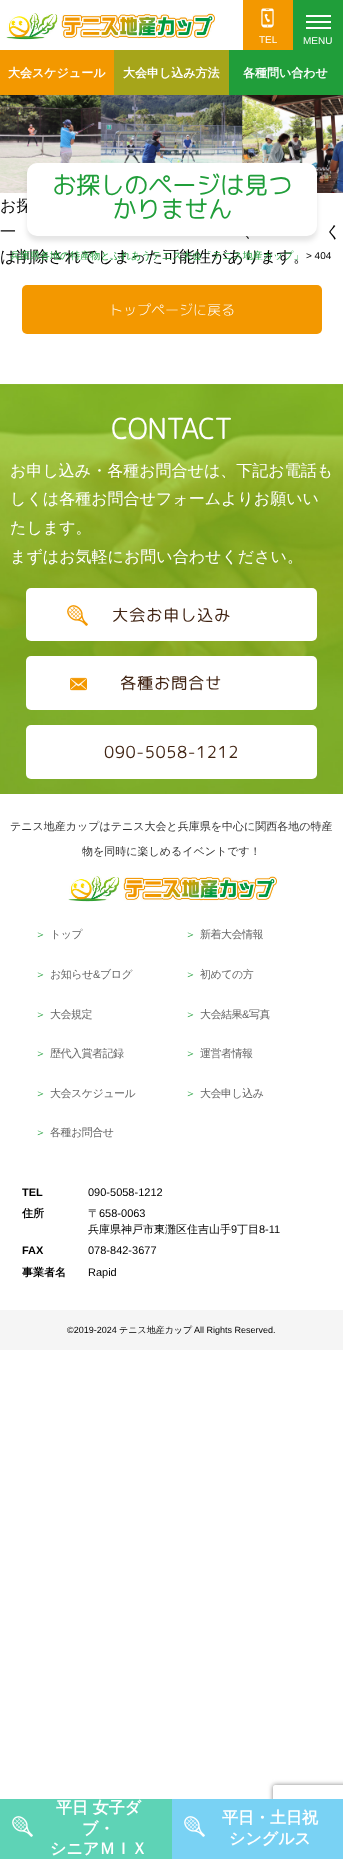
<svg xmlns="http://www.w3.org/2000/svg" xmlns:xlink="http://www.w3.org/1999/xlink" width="343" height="1859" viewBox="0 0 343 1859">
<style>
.cls-1{font:10px Liberation Sans;fill:#ffffff}
.cls-2{font:bold 12px WenQuanYi Zen Hei;fill:#ffffff}
.cls-3{font:500 16px WenQuanYi Zen Hei;fill:#000000}
.cls-4{font:bold 24px 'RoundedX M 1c';fill:#209e3a}
.cls-5{font:300 14px 'RoundedX M 1c';fill:#ffffff}
.cls-6{font:500 10px WenQuanYi Zen Hei;fill:#209e3a}
.cls-7{font:10px Liberation Sans;fill:#000000}
.cls-8{font:bold 28px 'RoundedX M 1c';fill:#ffffff}
.cls-9{font:500 16px WenQuanYi Zen Hei;fill:#ffffff}
.cls-10{font:bold 16px 'RoundedX M 1c';letter-spacing:1px;fill:#412413}
.cls-11{font:500 11px WenQuanYi Zen Hei;fill:#333333}
.cls-12{font:500 11px WenQuanYi Zen Hei;letter-spacing:-0.5px;fill:#209e3a}
.cls-13{font:500 11px WenQuanYi Zen Hei;letter-spacing:-0.5px;fill:#666666}
.cls-14{font:11px Liberation Sans;letter-spacing:-0.5px;fill:#666666}
.cls-15{font:bold 11px Liberation Sans;fill:#000000}
.cls-16{font:11px Liberation Sans;fill:#000000}
.cls-17{font:bold 11px WenQuanYi Zen Hei;fill:#000000}
.cls-18{font:500 11px WenQuanYi Zen Hei;fill:#000000}
.cls-19{font:9px Liberation Sans;fill:#000000}
.cls-20{font:500 9px WenQuanYi Zen Hei;fill:#000000}
.cls-21{font:bold 16px WenQuanYi Zen Hei;fill:#ffffff}
</style>
<defs>
<clipPath id="clip1"><path d="M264 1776H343V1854H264ZM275 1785H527C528 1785 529 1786 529 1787V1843C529 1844 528 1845 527 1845H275C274 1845 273 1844 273 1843V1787C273 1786 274 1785 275 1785Z" clip-rule="evenodd"/></clipPath>
</defs>
<rect width="100%" height="100%" fill="#ffffff"/>
<image xlink:href="image0.png" x="6" y="13" width="209" height="27"/>
<rect fill="#f39800" x="243" y="0" width="50" height="50"/>
<image xlink:href="image1.png" x="261" y="8" width="13" height="20"/>
<rect fill="#f39800" x="0" y="50" width="114" height="45"/>
<rect fill="#a6a51a" x="114" y="50" width="115" height="45"/>
<rect fill="#209e3a" x="229" y="50" width="114" height="45"/>
<rect fill="#209e3a" x="293" y="0" width="50" height="50"/>
<rect fill="#ffffff" x="306" y="15" width="25" height="2"/>
<rect fill="#ffffff" x="306" y="21" width="25" height="2"/>
<rect fill="#ffffff" x="306" y="27" width="25" height="2"/>
<image xlink:href="image2.png" x="0" y="95" width="343" height="98"/>
<rect fill="#000000" fill-opacity="0.1" filter="blur(2.5px)" x="27" y="168" width="290" height="73" rx="10"/>
<rect fill="#f39800" x="22" y="285" width="300" height="49" rx="5"/>
<image xlink:href="image3.png" x="0" y="384" width="343" height="410"/>
<rect fill="#ffffff" x="26" y="588" width="291" height="53" rx="5"/>
<image xlink:href="image4.png" x="67" y="605" width="21" height="21"/>
<rect fill="#ffffff" x="26" y="656" width="291" height="54" rx="5"/>
<image xlink:href="image5.png" x="70" y="677" width="17" height="14"/>
<rect fill="#ffffff" x="26" y="725" width="291" height="54" rx="5"/>
<image xlink:href="image6.png" x="68" y="876" width="209" height="26"/>
<rect fill="#f5f5f5" x="0" y="1310" width="343" height="40"/>
<g clip-path="url(#clip1)">
<rect fill="#808080" filter="blur(2.5px)" x="273" y="1785" width="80" height="60" rx="2"/>
</g>
<rect fill="#5ed3b6" x="0" y="1799" width="172" height="60"/>
<image xlink:href="image7.png" x="12" y="1816" width="21" height="21"/>
<rect fill="#79d2f4" x="172" y="1799" width="171" height="60"/>
<image xlink:href="image8.png" x="184" y="1816" width="21" height="21"/>
<text class="cls-1" x="259" y="43">TEL</text>
<text class="cls-2" x="8" y="77">大会スケジュール</text>
<text class="cls-2" x="123" y="77">大会申し込み方法</text>
<text class="cls-2" x="243" y="77">各種問い合わせ</text>
<text class="cls-1" x="303" y="44">MENU</text>
<text class="cls-3"><tspan x="0" y="211">お探</tspan><tspan x="0" y="237">一</tspan></text>
<text class="cls-3" x="325" y="237">く</text>
<text class="cls-3" x="244" y="237">、</text>
<rect fill="#ffffff" x="27" y="163" width="290" height="73" rx="10"/>
<text class="cls-4" x="112" y="218">かりません</text>
<text class="cls-4" x="52" y="194">お探しのページは見つ</text>
<text class="cls-3" x="0" y="262">は削除されてしまった可能性があります。</text>
<text class="cls-5" x="109" y="315">トップページに戻る</text>
<text class="cls-6" x="10" y="259">兵庫県各地の特産物とふれあうテニス大会「テニス地産カップ」</text>
<text class="cls-7" x="306" y="259">&gt; 404</text>
<text class="cls-8" x="111" y="439">CONTACT</text>
<text class="cls-9"><tspan x="10" y="476">お申し込み・各種お問合せは、下記お電話も</tspan><tspan x="10" y="504">しくは各種お問合せフォームよりお願いい</tspan><tspan x="10" y="533">たします。</tspan><tspan x="10" y="562">まずはお気軽にお問い合わせください。</tspan></text>
<text class="cls-10" x="112" y="621">大会お申し込み</text>
<text class="cls-10" x="120" y="689">各種お問合せ</text>
<text class="cls-10" x="104" y="758">090-5058-1212</text>
<text class="cls-11" x="10" y="830">テニス地産カップはテニス大会と兵庫県を中心に関西各地の特産</text>
<text class="cls-11" x="82" y="855">物を同時に楽しめるイベントです！</text>
<text class="cls-12" x="35" y="938">＞</text>
<text class="cls-13" x="50" y="938">トップ</text>
<text class="cls-12" x="185" y="938">＞</text>
<text class="cls-13" x="200" y="938">新着大会情報</text>
<text class="cls-12" x="35" y="978">＞</text>
<text class="cls-13" x="50" y="978">お知らせ</text>
<text class="cls-14" x="93" y="978">&amp;</text>
<text class="cls-13" x="100" y="978">ブログ</text>
<text class="cls-12" x="185" y="978">＞</text>
<text class="cls-13" x="200" y="978">初めての方</text>
<text class="cls-12" x="35" y="1018">＞</text>
<text class="cls-13" x="50" y="1018">大会規定</text>
<text class="cls-12" x="185" y="1018">＞</text>
<text class="cls-13" x="200" y="1018">大会結果</text>
<text class="cls-14" x="242" y="1018">&amp;</text>
<text class="cls-13" x="249" y="1018">写真</text>
<text class="cls-12" x="35" y="1057">＞</text>
<text class="cls-13" x="50" y="1057">歴代入賞者記録</text>
<text class="cls-12" x="185" y="1057">＞</text>
<text class="cls-13" x="200" y="1057">運営者情報</text>
<text class="cls-12" x="35" y="1097">＞</text>
<text class="cls-13" x="50" y="1097">大会スケジュール</text>
<text class="cls-12" x="185" y="1097">＞</text>
<text class="cls-13" x="200" y="1097">大会申し込み</text>
<text class="cls-12" x="35" y="1136">＞</text>
<text class="cls-13" x="50" y="1136">各種お問合せ</text>
<text class="cls-15" x="22" y="1196">TEL</text>
<text class="cls-16" x="88" y="1196">090-5058-1212</text>
<text class="cls-17" x="22" y="1217">住所</text>
<text class="cls-18" x="88" y="1217">〒</text>
<text class="cls-16" x="99" y="1217">658-0063</text>
<text class="cls-18" x="88" y="1233">兵庫県神戸市東灘区住吉山手</text>
<text class="cls-16" x="231" y="1233">9</text>
<text class="cls-18" x="237" y="1233">丁目</text>
<text class="cls-16" x="259" y="1233">8-11</text>
<text class="cls-15" x="22" y="1254">FAX</text>
<text class="cls-16" x="88" y="1254">078-842-3677</text>
<text class="cls-17" x="22" y="1276">事業者名</text>
<text class="cls-16" x="88" y="1276">Rapid</text>
<text class="cls-19" x="67" y="1333">©2019-2024</text>
<text class="cls-20" x="119" y="1333">テニス地産カップ</text>
<text class="cls-19" x="194" y="1333">All Rights Reserved.</text>
<text class="cls-21" x="56" y="1813">平日 女子ダ</text>
<text class="cls-21" x="82" y="1834">ブ・</text>
<text class="cls-21" x="50" y="1854">シニアＭＩＸ</text>
<text class="cls-21" x="222" y="1823">平日・土日祝</text>
<text class="cls-21" x="229" y="1844">シングルス</text>
</svg>
